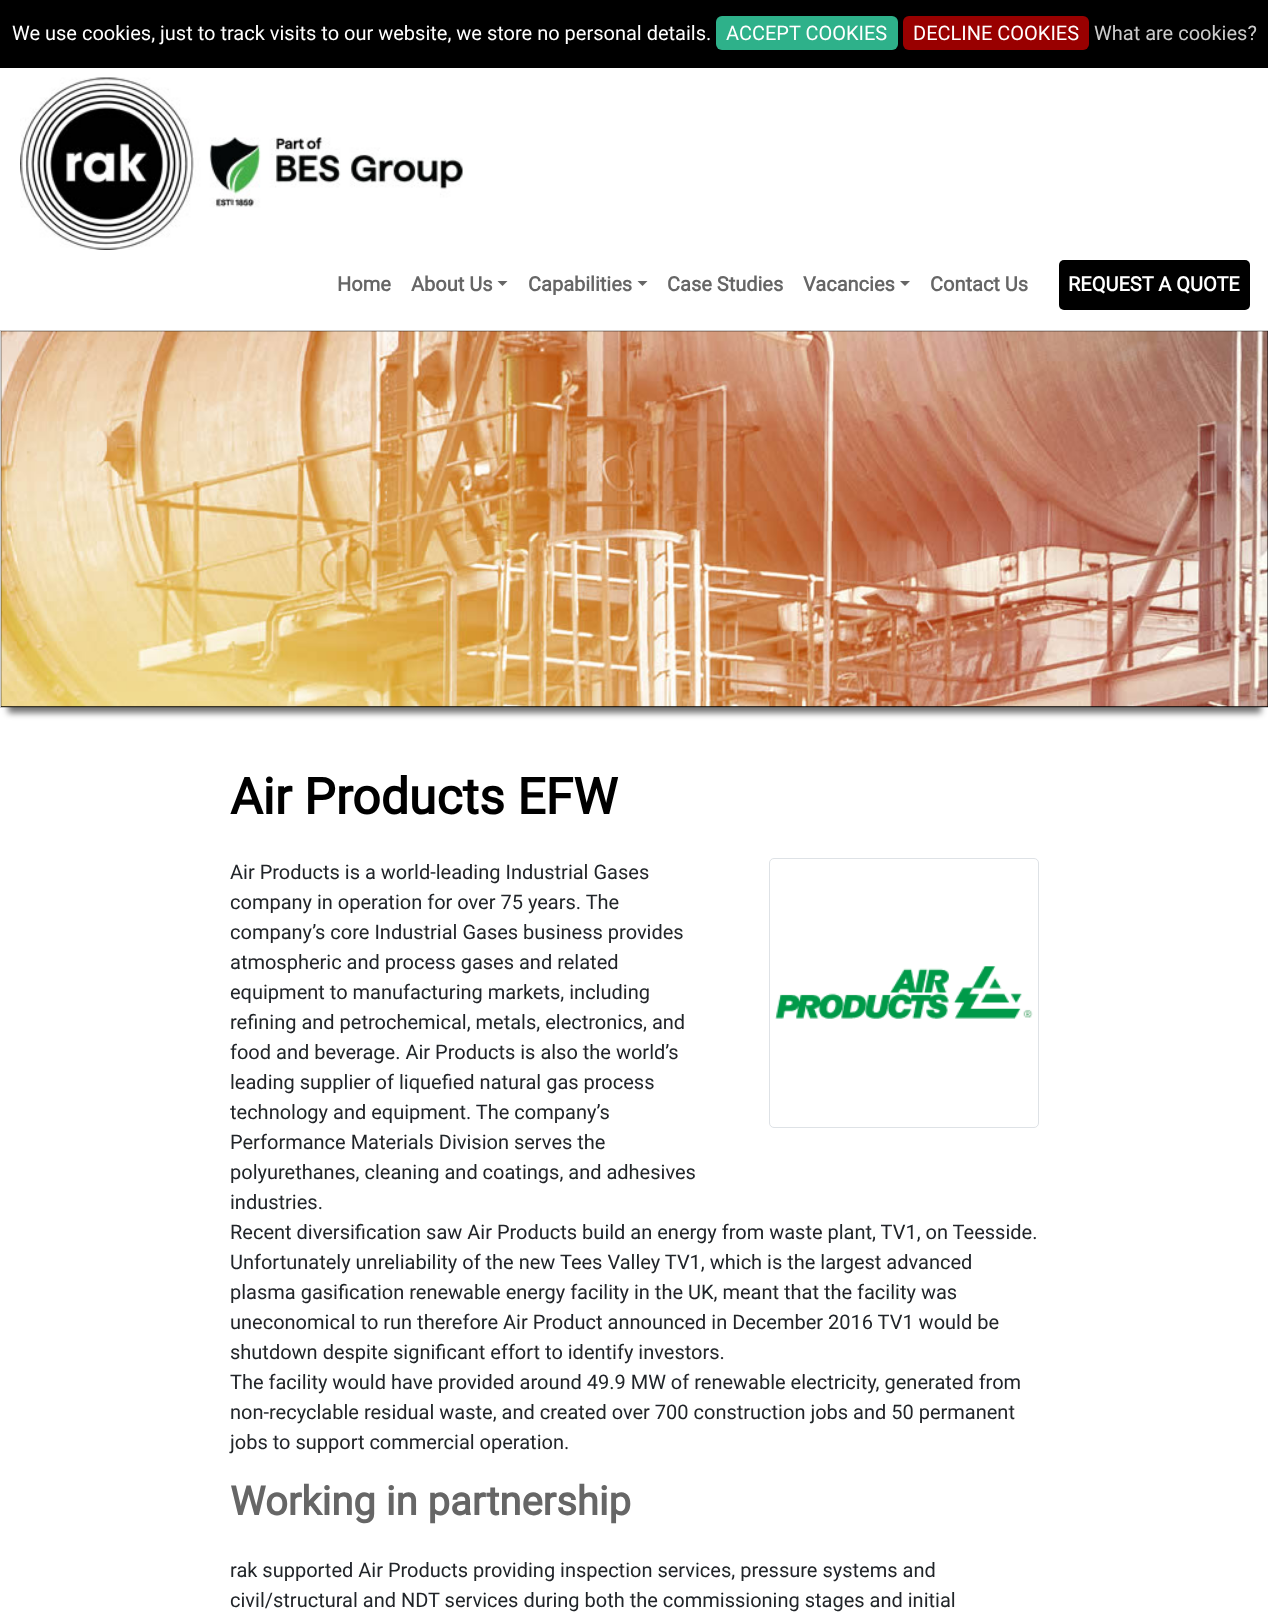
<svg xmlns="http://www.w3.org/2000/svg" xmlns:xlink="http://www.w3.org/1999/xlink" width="1268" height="1616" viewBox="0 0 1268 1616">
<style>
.cls-1{font:20px Roboto;fill:#ffffff}
.cls-2{font:20px Roboto;fill:#cccccc}
.cls-3{font:bold 20px Roboto;fill:#666666}
.cls-4{font:bold 20px Roboto;fill:#ffffff}
.cls-5{font:bold 50px Roboto;fill:#000000}
.cls-6{font:20px Roboto;fill:#212529}
.cls-7{font:bold 40px Roboto;fill:#666666}
</style>
<rect width="100%" height="100%" fill="#ffffff"/>
<rect fill="#000000" x="0" y="0" width="1268" height="68"/>
<rect fill="#2eb18a" x="716" y="16" width="182" height="34" rx="6"/>
<rect fill="#990000" x="903" y="16" width="186" height="34" rx="6"/>
<image xlink:href="image0.png" x="20" y="77" width="443" height="173"/>
<path fill="#666666" d="M497.5 281H507.5L502.5 286Z"/>
<path fill="#666666" d="M637.5 281H647.5L642.5 286Z"/>
<path fill="#666666" d="M900 281H910L905 286Z"/>
<rect fill="#000000" x="1059" y="260" width="191" height="50" rx="5"/>
<rect fill="#000000" stroke="#cccccc" x="0.5" y="330.5" width="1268" height="377"/>
<rect fill="#000000" fill-opacity="0.55" filter="blur(3px)" x="8" y="350" width="1253" height="363"/>
<image xlink:href="image1.png" x="1" y="331" width="1267" height="376"/>
<rect fill="none" stroke="#dee2e6" x="769.5" y="858.5" width="269" height="269" rx="4.5"/>
<image xlink:href="image2.png" x="775" y="966" width="258" height="53"/>
<text class="cls-1" x="12" y="40">We use cookies, just to track visits to our website, we store no personal details.</text>
<text class="cls-1" x="726" y="40">ACCEPT COOKIES</text>
<text class="cls-1" x="913" y="40">DECLINE COOKIES</text>
<text class="cls-2" x="1094" y="40">What are cookies?</text>
<text class="cls-3" x="337" y="291">Home</text>
<text class="cls-3" x="411" y="291">About Us</text>
<text class="cls-3" x="528" y="291">Capabilities</text>
<text class="cls-3" x="667" y="291">Case Studies</text>
<text class="cls-3" x="803" y="291">Vacancies</text>
<text class="cls-3" x="930" y="291">Contact Us</text>
<text class="cls-4" x="1068" y="291">REQUEST A QUOTE</text>
<text class="cls-5" x="230" y="814">Air Products EFW</text>
<text class="cls-6"><tspan x="230" y="879">Air Products is a world-leading Industrial Gases</tspan><tspan x="230" y="909">company in operation for over 75 years. The</tspan><tspan x="230" y="939">company’s core Industrial Gases business provides</tspan><tspan x="230" y="969">atmospheric and process gases and related</tspan><tspan x="230" y="999">equipment to manufacturing markets, including</tspan><tspan x="230" y="1029">refining and petrochemical, metals, electronics, and</tspan><tspan x="230" y="1059">food and beverage. Air Products is also the world’s</tspan><tspan x="230" y="1089">leading supplier of liquefied natural gas process</tspan><tspan x="230" y="1119">technology and equipment. The company’s</tspan><tspan x="230" y="1149">Performance Materials Division serves the</tspan><tspan x="230" y="1179">polyurethanes, cleaning and coatings, and adhesives</tspan><tspan x="230" y="1209">industries.</tspan><tspan x="230" y="1239">Recent diversification saw Air Products build an energy from waste plant, TV1, on Teesside.</tspan><tspan x="230" y="1269">Unfortunately unreliability of the new Tees Valley TV1, which is the largest advanced</tspan><tspan x="230" y="1299">plasma gasification renewable energy facility in the UK, meant that the facility was</tspan><tspan x="230" y="1329">uneconomical to run therefore Air Product announced in December 2016 TV1 would be</tspan><tspan x="230" y="1359">shutdown despite significant effort to identify investors.</tspan><tspan x="230" y="1389">The facility would have provided around 49.9 MW of renewable electricity, generated from</tspan><tspan x="230" y="1419">non-recyclable residual waste, and created over 700 construction jobs and 50 permanent</tspan><tspan x="230" y="1449">jobs to support commercial operation.</tspan></text>
<text class="cls-7" x="230" y="1515">Working in partnership</text>
<text class="cls-6"><tspan x="230" y="1577">rak supported Air Products providing inspection services, pressure systems and</tspan><tspan x="230" y="1607">civil/structural and NDT services during both the commissioning stages and initial</tspan></text>
</svg>
